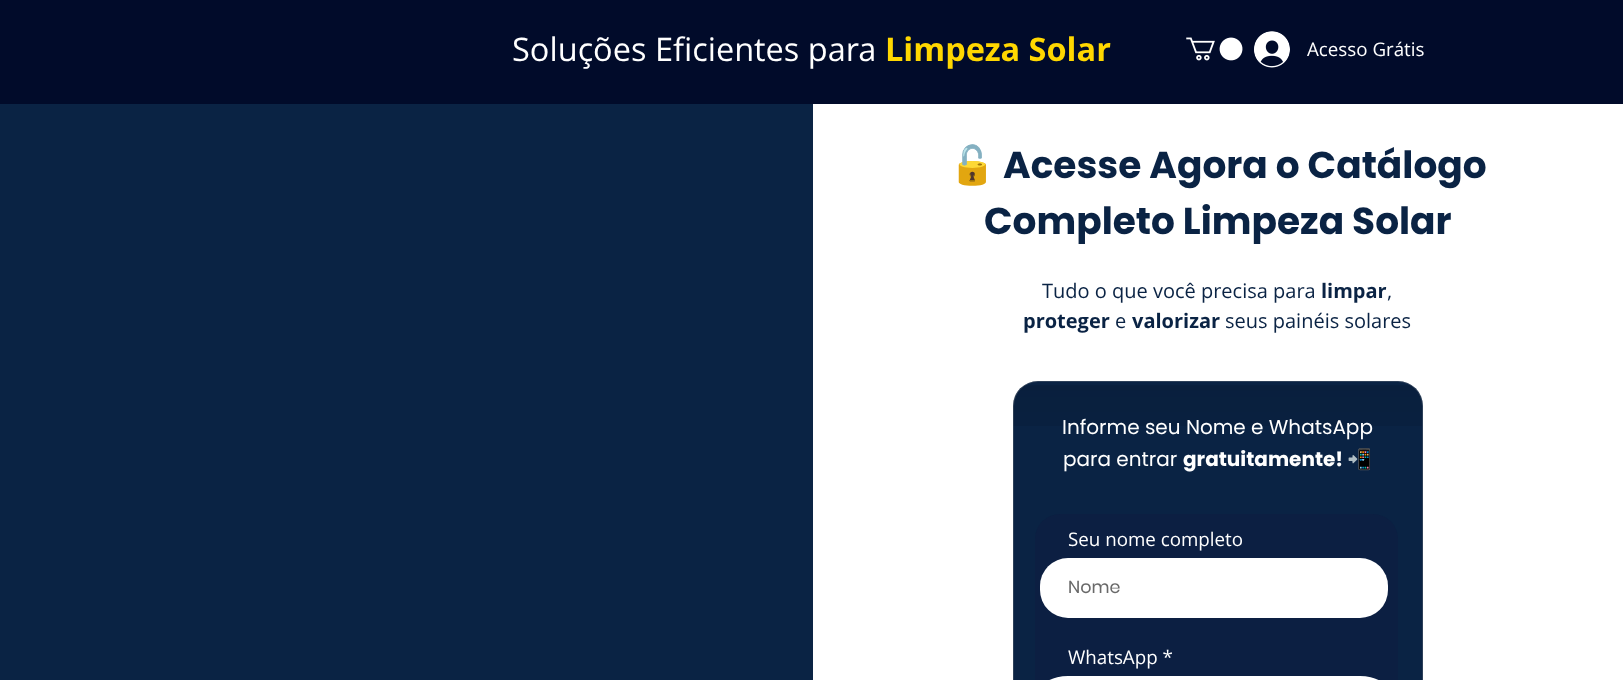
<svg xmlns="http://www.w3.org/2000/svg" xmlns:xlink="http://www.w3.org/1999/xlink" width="1623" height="680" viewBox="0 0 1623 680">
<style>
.cls-1{font:32.5px 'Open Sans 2';fill:#ffffff}
.cls-2{font:bold 32.5px 'Open Sans 2';fill:#ffd700}
.cls-3{font:18.75px Open Sans;fill:#ffffff}
.cls-4{font:bold 37.5px Noto Color Emoji;fill:#0a2344}
.cls-5{font:bold 37.5px Poppins;fill:#0a2344}
.cls-6{font:20px Open Sans;fill:#0a2344}
.cls-7{font:bold 20px Open Sans;fill:#0a2344}
.cls-8{font:20px Poppins;fill:#ffffff}
.cls-9{font:bold 20px Poppins;fill:#ffffff}
.cls-10{font:20px Noto Color Emoji;fill:#ffffff}
.cls-11{font:17.5px 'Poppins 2';fill:#696969}
</style>
<rect width="100%" height="100%" fill="#ffffff"/>
<rect fill="#010b2a" x="0" y="0" width="1623" height="104"/>
<image xlink:href="image0.png" x="1186" y="37" width="57" height="24"/>
<image xlink:href="image1.png" x="1254" y="31" width="36" height="37"/>
<rect fill="#0a2344" x="0" y="104" width="813" height="576"/>
<rect fill="#0a2344" x="1013" y="381" width="410" height="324" rx="25"/>
<image xlink:href="image2.png" x="1013" y="385" width="409" height="41"/>
<rect fill="none" stroke="#999997" stroke-opacity="0.25" x="1013.5" y="381.5" width="409" height="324" rx="24.5"/>
<rect fill="#0c1f42" x="1035" y="514" width="363" height="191" rx="25"/>
<rect fill="#ffffff" x="1040" y="558" width="348" height="60" rx="28"/>
<rect fill="#ffffff" x="1040" y="676" width="348" height="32" rx="28"/>
<text class="cls-1" x="512" y="61">Soluções Eficientes para</text>
<text class="cls-2" x="885" y="61">Limpeza Solar</text>
<text class="cls-3" x="1307" y="56">Acesso Grátis</text>
<text class="cls-4" x="949" y="178">🔓</text>
<text class="cls-5" x="1003" y="178">Acesse Agora o Catálogo</text>
<text class="cls-5" x="984" y="234">Completo Limpeza Solar</text>
<text class="cls-6" x="1042" y="298">Tudo o que você precisa para</text>
<text class="cls-7" x="1321" y="298">limpar</text>
<text class="cls-6" x="1387" y="298">,</text>
<text class="cls-7" x="1023" y="328">proteger</text>
<text class="cls-6" x="1115" y="328">e</text>
<text class="cls-7" x="1132" y="328">valorizar</text>
<text class="cls-6" x="1225" y="328">seus painéis solares</text>
<text class="cls-8" x="1062" y="434">Informe seu Nome e WhatsApp</text>
<text class="cls-8" x="1063" y="466">para entrar</text>
<text class="cls-9" x="1183" y="466">gratuitamente!</text>
<text class="cls-10" x="1347" y="466">📲</text>
<text class="cls-3" x="1068" y="546">Seu nome completo</text>
<text class="cls-11" x="1068" y="593">Nome</text>
<text class="cls-3" x="1068" y="664">WhatsApp *</text>
</svg>
